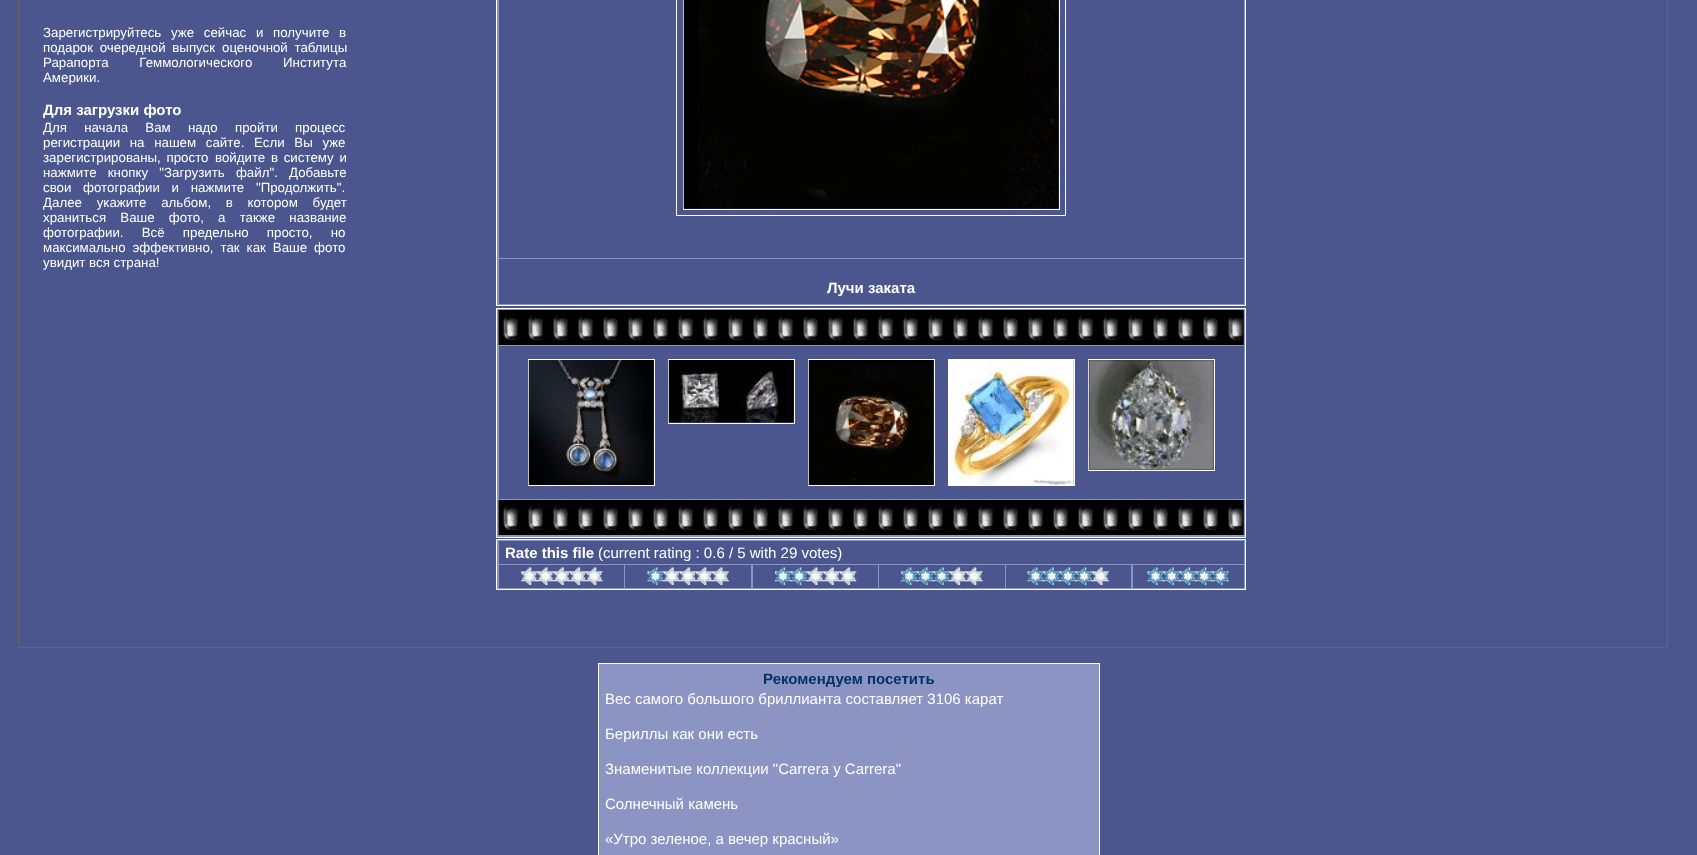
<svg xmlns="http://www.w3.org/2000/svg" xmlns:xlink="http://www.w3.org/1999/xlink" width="1697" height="855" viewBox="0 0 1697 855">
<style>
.cls-1{font:13.3px Liberation Sans;fill:#ffffff}
.cls-2{font:bold 15px Liberation Sans;fill:#ffffff}
.cls-3{font:15px Liberation Sans;fill:#ffffff}
.cls-4{font:bold 15px Liberation Sans;fill:#003366}
</style>
<rect width="100%" height="100%" fill="#4b568e"/>
<rect fill="none" stroke="#666666" x="18.5" y="-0.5" width="1649" height="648"/>
<rect fill="#8b94c2" stroke="#ffffff" x="496.5" y="-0.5" width="749" height="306"/>
<rect fill="#4b568e" x="499" y="0" width="745" height="258"/>
<rect fill="none" stroke="#ffffff" x="676.5" y="-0.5" width="389" height="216"/>
<rect fill="none" stroke="#ffffff" x="683.5" y="-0.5" width="376" height="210"/>
<image xlink:href="image0.png" x="683" y="0" width="376" height="209"/>
<rect fill="#4b568e" x="499" y="259" width="745" height="45"/>
<rect fill="#8b94c2" stroke="#ffffff" x="496.5" y="308.5" width="749" height="229"/>
<image xlink:href="image1.png" x="498" y="310" width="746" height="35"/>
<image xlink:href="image2.png" x="498" y="310" width="7" height="35"/>
<rect fill="#4b568e" x="499" y="346" width="745" height="153"/>
<rect fill="none" stroke="#ffffff" x="528.5" y="359.5" width="126" height="126"/>
<image xlink:href="image3.png" x="528" y="360" width="126" height="125"/>
<rect fill="none" stroke="#ffffff" x="668.5" y="359.5" width="126" height="64"/>
<image xlink:href="image4.png" x="668" y="360" width="126" height="63"/>
<rect fill="none" stroke="#ffffff" x="808.5" y="359.5" width="126" height="126"/>
<image xlink:href="image5.png" x="808" y="360" width="126" height="125"/>
<rect fill="none" stroke="#ffffff" x="948.5" y="359.5" width="126" height="126"/>
<image xlink:href="image6.png" x="949" y="360" width="125" height="125"/>
<rect fill="none" stroke="#ffffff" x="1088.5" y="359.5" width="126" height="111"/>
<image xlink:href="image7.png" x="1088" y="360" width="126" height="110"/>
<image xlink:href="image8.png" x="498" y="500" width="746" height="35"/>
<image xlink:href="image2.png" x="498" y="500" width="7" height="35"/>
<rect fill="#8b94c2" stroke="#ffffff" x="496.5" y="539.5" width="749" height="50"/>
<rect fill="#4b568e" x="499" y="541" width="745" height="23"/>
<rect fill="#4b568e" x="499" y="565" width="125" height="23"/>
<image xlink:href="image9.png" x="521" y="567" width="82" height="18"/>
<rect fill="#4b568e" x="625" y="565" width="126" height="23"/>
<image xlink:href="image10.png" x="647" y="567" width="82" height="18"/>
<rect fill="#4b568e" x="753" y="565" width="125" height="23"/>
<image xlink:href="image11.png" x="775" y="567" width="82" height="18"/>
<rect fill="#4b568e" x="879" y="565" width="126" height="23"/>
<image xlink:href="image12.png" x="901" y="567" width="82" height="18"/>
<rect fill="#4b568e" x="1006" y="565" width="125" height="23"/>
<image xlink:href="image13.png" x="1027" y="567" width="82" height="18"/>
<rect fill="#4b568e" x="1133" y="565" width="111" height="23"/>
<image xlink:href="image14.png" x="1147" y="567" width="82" height="18"/>
<rect fill="#8b94c2" stroke="#ffffff" x="598.5" y="663.5" width="501" height="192"/>
<text class="cls-1"><tspan x="43" y="37" word-spacing="6">Зарегистрируйтесь уже сейчас и получите в</tspan><tspan x="43" y="52" word-spacing="3">подарок очередной выпуск</tspan></text>
<text class="cls-1" x="222" y="52" word-spacing="3">оценочной таблицы</text>
<text class="cls-1"><tspan x="43" y="67" word-spacing="27">Рарапорта Геммологического Института</tspan><tspan x="43" y="82">Америки.</tspan></text>
<text class="cls-2" x="43" y="115">Для загрузки фото</text>
<text class="cls-1"><tspan x="43" y="132" word-spacing="13.5">Для начала Вам надо пройти процесс</tspan><tspan x="43" y="147" word-spacing="6">регистрации на нашем сайте. Если Вы уже</tspan><tspan x="43" y="162" word-spacing="2">зарегистрированы, просто</tspan></text>
<text class="cls-1" x="215" y="162" word-spacing="2">войдите в систему и</text>
<text class="cls-1"><tspan x="43" y="177" word-spacing="7.5">нажмите кнопку "Загрузить файл". Добавьте</tspan><tspan x="43" y="192" word-spacing="8">свои фотографии и нажмите "Продолжить".</tspan><tspan x="43" y="207" word-spacing="11">Далее укажите альбом, в котором будет</tspan><tspan x="43" y="222" word-spacing="10.5">храниться Ваше фото, а также название</tspan><tspan x="43" y="237" word-spacing="14.5">фотографии. Всё предельно просто, но</tspan><tspan x="43" y="252" word-spacing="3.25">максимально эффективно, так как Ваше фото</tspan><tspan x="43" y="267">увидит вся страна!</tspan></text>
<text class="cls-2" x="827" y="293">Лучи заката</text>
<text class="cls-2" x="505" y="558">Rate this file</text>
<text class="cls-3" x="598" y="558">(current rating : 0.6 / 5 with 29 votes)</text>
<text class="cls-4" x="763" y="684">Рекомендуем посетить</text>
<text class="cls-3" x="605" y="704">Вес самого большого бриллианта составляет 3106 карат</text>
<text class="cls-3" x="605" y="739">Бериллы как они есть</text>
<text class="cls-3" x="605" y="774">Знаменитые коллекции "Carrera y Carrera"</text>
<text class="cls-3" x="605" y="809">Солнечный камень</text>
<text class="cls-3" x="605" y="844">«Утро зеленое, а вечер красный»</text>
</svg>
